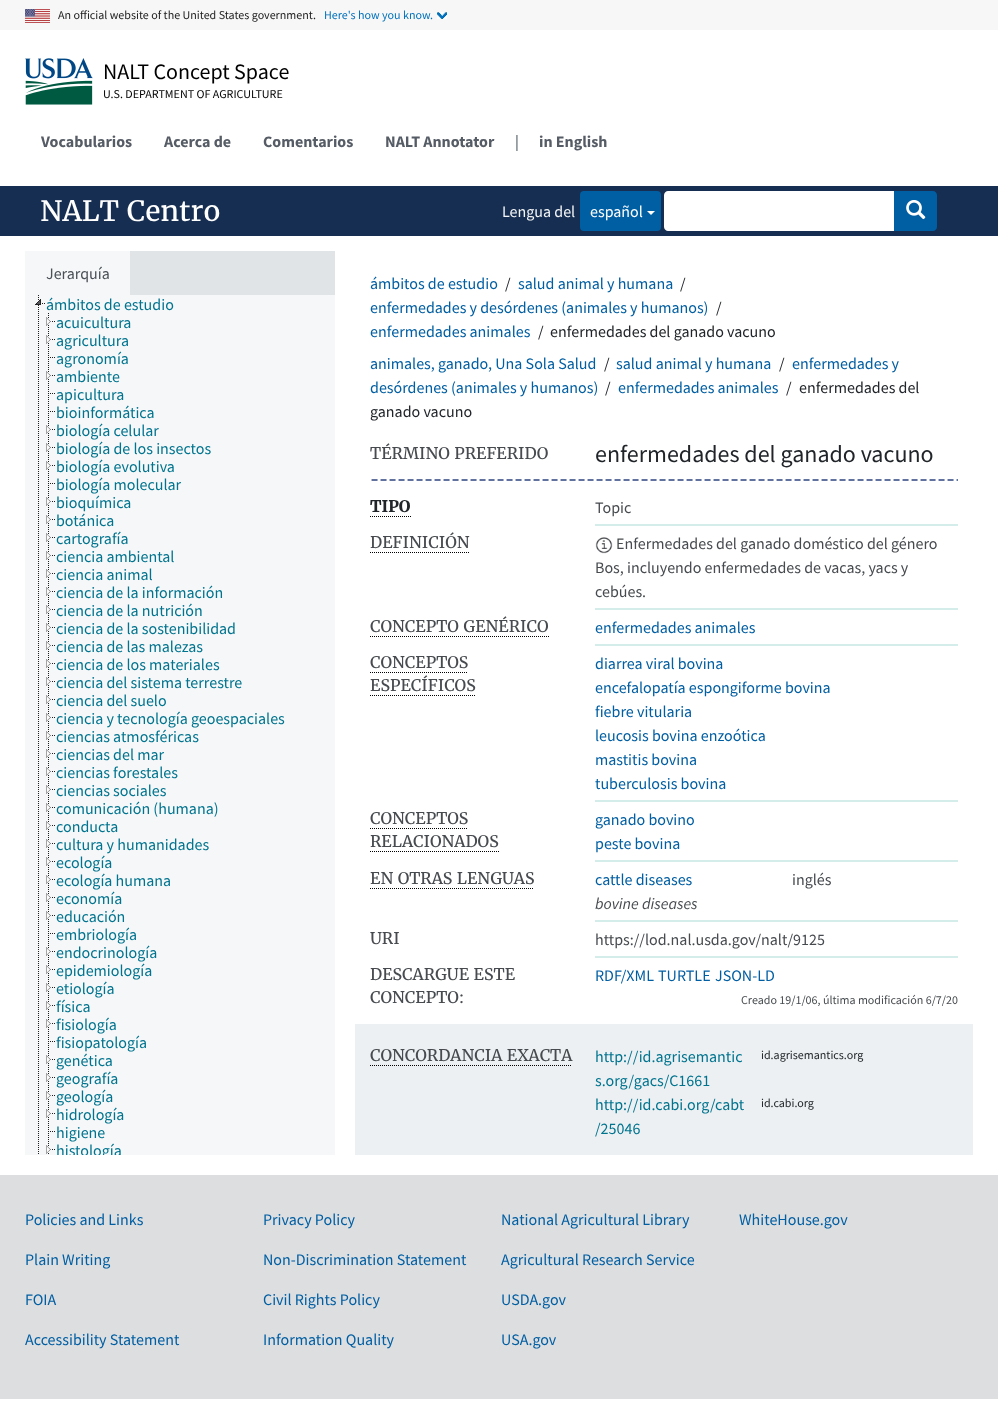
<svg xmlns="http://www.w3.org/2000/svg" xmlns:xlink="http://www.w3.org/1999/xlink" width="998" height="1428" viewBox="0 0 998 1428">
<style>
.cls-1{font:12px Source Sans Pro;fill:#212121}
.cls-2{font:12px Source Sans Pro;fill:#0071bc}
.cls-3{font:22px Source Sans Pro;fill:#000000}
.cls-4{font:12px Source Sans Pro;fill:#000000}
.cls-5{font:bold 16px Source Sans Pro;fill:#565c65}
.cls-6{font:16px Source Sans Pro;fill:#394554}
.cls-7{font:28px Merriweather;fill:#ffffff}
.cls-8{font:16px Source Sans Pro;fill:#f3f5f6}
.cls-9{font:16px Source Sans Pro;fill:#ffffff}
.cls-10{font:16px Source Sans Pro;fill:#495057}
.cls-11{font:16px Source Sans Pro;fill:#00748f}
.cls-12{font:16px Source Sans Pro;fill:#005ea2}
.cls-13{font:16px Source Sans Pro;fill:#212529}
.cls-14{font:16px Merriweather;fill:#474b4f}
.cls-15{font:24px Source Sans Pro;fill:#212529}
.cls-16{font:bold 16px Merriweather;fill:#212529}
.cls-17{font:16px Source Sans Pro;fill:#474b4f}
.cls-18{font:italic 16px Source Sans Pro;fill:#474b4f}
.cls-19{font:12px Source Sans Pro;fill:#474b4f}
.cls-20{font:12px Source Sans Pro;fill:#212529}
</style>
<defs>
<clipPath id="clip1"><rect x="25" y="295" width="310" height="860"/></clipPath>
</defs>
<rect width="100%" height="100%" fill="#ffffff"/>
<rect fill="#f7f7f7" x="0" y="0" width="998" height="30"/>
<image xlink:href="image0.png" x="25" y="9" width="25" height="14"/>
<image xlink:href="image1.png" x="437" y="12" width="10" height="7"/>
<image xlink:href="image2.png" x="25" y="58" width="68" height="47"/>
<rect fill="#162e51" x="0" y="186" width="998" height="50"/>
<rect fill="#005ea2" x="580" y="191" width="81" height="40" rx="4"/>
<path fill="#ffffff" d="M647 211H655L651 215Z"/>
<path fill="#ffffff" d="M668 191H895V231H668C666 231 664 229 664 227V195C664 193 666 191 668 191Z"/>
<path fill="#005ea2" d="M894 191H933C935 191 937 193 937 195V227C937 229 935 231 933 231H894Z"/>
<image xlink:href="image3.png" x="906" y="200" width="20" height="20"/>
<rect fill="#e0e4e7" x="130" y="251" width="205" height="44"/>
<rect fill="#f6f7f8" x="25" y="251" width="105" height="44"/>
<rect fill="#f6f7f8" x="25" y="295" width="310" height="860"/>
<image xlink:href="image4.png" x="38" y="295" width="1" height="859"/>
<image xlink:href="image5.png" x="35" y="299" width="10" height="6"/>
<image xlink:href="image6.png" x="48" y="313" width="1" height="17"/>
<image xlink:href="image7.png" x="46" y="317" width="9" height="9"/>
<image xlink:href="image6.png" x="48" y="331" width="1" height="17"/>
<image xlink:href="image7.png" x="46" y="335" width="9" height="9"/>
<image xlink:href="image6.png" x="48" y="349" width="1" height="17"/>
<image xlink:href="image8.png" x="50" y="357" width="5" height="1"/>
<image xlink:href="image6.png" x="48" y="367" width="1" height="17"/>
<image xlink:href="image7.png" x="46" y="371" width="9" height="9"/>
<image xlink:href="image6.png" x="48" y="385" width="1" height="17"/>
<image xlink:href="image8.png" x="50" y="393" width="5" height="1"/>
<image xlink:href="image6.png" x="48" y="403" width="1" height="17"/>
<image xlink:href="image8.png" x="50" y="411" width="5" height="1"/>
<image xlink:href="image6.png" x="48" y="421" width="1" height="17"/>
<image xlink:href="image7.png" x="46" y="425" width="9" height="9"/>
<image xlink:href="image6.png" x="48" y="439" width="1" height="17"/>
<image xlink:href="image7.png" x="46" y="443" width="9" height="9"/>
<image xlink:href="image6.png" x="48" y="457" width="1" height="17"/>
<image xlink:href="image7.png" x="46" y="461" width="9" height="9"/>
<image xlink:href="image6.png" x="48" y="475" width="1" height="17"/>
<image xlink:href="image8.png" x="50" y="483" width="5" height="1"/>
<image xlink:href="image6.png" x="48" y="493" width="1" height="17"/>
<image xlink:href="image7.png" x="46" y="497" width="9" height="9"/>
<image xlink:href="image6.png" x="48" y="511" width="1" height="17"/>
<image xlink:href="image7.png" x="46" y="515" width="9" height="9"/>
<image xlink:href="image6.png" x="48" y="529" width="1" height="17"/>
<image xlink:href="image7.png" x="46" y="533" width="9" height="9"/>
<image xlink:href="image6.png" x="48" y="547" width="1" height="17"/>
<image xlink:href="image7.png" x="46" y="551" width="9" height="9"/>
<image xlink:href="image6.png" x="48" y="565" width="1" height="17"/>
<image xlink:href="image7.png" x="46" y="569" width="9" height="9"/>
<image xlink:href="image6.png" x="48" y="583" width="1" height="17"/>
<image xlink:href="image7.png" x="46" y="587" width="9" height="9"/>
<image xlink:href="image6.png" x="48" y="601" width="1" height="17"/>
<image xlink:href="image7.png" x="46" y="605" width="9" height="9"/>
<image xlink:href="image6.png" x="48" y="619" width="1" height="17"/>
<image xlink:href="image7.png" x="46" y="623" width="9" height="9"/>
<image xlink:href="image6.png" x="48" y="637" width="1" height="17"/>
<image xlink:href="image7.png" x="46" y="641" width="9" height="9"/>
<image xlink:href="image6.png" x="48" y="655" width="1" height="17"/>
<image xlink:href="image7.png" x="46" y="659" width="9" height="9"/>
<image xlink:href="image6.png" x="48" y="673" width="1" height="17"/>
<image xlink:href="image7.png" x="46" y="677" width="9" height="9"/>
<image xlink:href="image6.png" x="48" y="691" width="1" height="17"/>
<image xlink:href="image7.png" x="46" y="695" width="9" height="9"/>
<image xlink:href="image6.png" x="48" y="709" width="1" height="17"/>
<image xlink:href="image7.png" x="46" y="713" width="9" height="9"/>
<image xlink:href="image6.png" x="48" y="727" width="1" height="17"/>
<image xlink:href="image7.png" x="46" y="731" width="9" height="9"/>
<image xlink:href="image6.png" x="48" y="745" width="1" height="17"/>
<image xlink:href="image7.png" x="46" y="749" width="9" height="9"/>
<image xlink:href="image6.png" x="48" y="763" width="1" height="17"/>
<image xlink:href="image7.png" x="46" y="767" width="9" height="9"/>
<image xlink:href="image6.png" x="48" y="781" width="1" height="17"/>
<image xlink:href="image7.png" x="46" y="785" width="9" height="9"/>
<image xlink:href="image6.png" x="48" y="799" width="1" height="17"/>
<image xlink:href="image7.png" x="46" y="803" width="9" height="9"/>
<image xlink:href="image6.png" x="48" y="817" width="1" height="17"/>
<image xlink:href="image7.png" x="46" y="821" width="9" height="9"/>
<image xlink:href="image6.png" x="48" y="835" width="1" height="17"/>
<image xlink:href="image7.png" x="46" y="839" width="9" height="9"/>
<image xlink:href="image6.png" x="48" y="853" width="1" height="17"/>
<image xlink:href="image7.png" x="46" y="857" width="9" height="9"/>
<image xlink:href="image6.png" x="48" y="871" width="1" height="17"/>
<image xlink:href="image7.png" x="46" y="875" width="9" height="9"/>
<image xlink:href="image6.png" x="48" y="889" width="1" height="17"/>
<image xlink:href="image7.png" x="46" y="893" width="9" height="9"/>
<image xlink:href="image6.png" x="48" y="907" width="1" height="17"/>
<image xlink:href="image7.png" x="46" y="911" width="9" height="9"/>
<image xlink:href="image6.png" x="48" y="925" width="1" height="17"/>
<image xlink:href="image8.png" x="50" y="933" width="5" height="1"/>
<image xlink:href="image6.png" x="48" y="943" width="1" height="17"/>
<image xlink:href="image7.png" x="46" y="947" width="9" height="9"/>
<image xlink:href="image6.png" x="48" y="961" width="1" height="17"/>
<image xlink:href="image7.png" x="46" y="965" width="9" height="9"/>
<image xlink:href="image6.png" x="48" y="979" width="1" height="17"/>
<image xlink:href="image7.png" x="46" y="983" width="9" height="9"/>
<image xlink:href="image6.png" x="48" y="997" width="1" height="17"/>
<image xlink:href="image7.png" x="46" y="1001" width="9" height="9"/>
<image xlink:href="image6.png" x="48" y="1015" width="1" height="17"/>
<image xlink:href="image7.png" x="46" y="1019" width="9" height="9"/>
<image xlink:href="image6.png" x="48" y="1033" width="1" height="17"/>
<image xlink:href="image8.png" x="50" y="1041" width="5" height="1"/>
<image xlink:href="image6.png" x="48" y="1051" width="1" height="17"/>
<image xlink:href="image7.png" x="46" y="1055" width="9" height="9"/>
<image xlink:href="image6.png" x="48" y="1069" width="1" height="17"/>
<image xlink:href="image7.png" x="46" y="1073" width="9" height="9"/>
<image xlink:href="image6.png" x="48" y="1087" width="1" height="17"/>
<image xlink:href="image7.png" x="46" y="1091" width="9" height="9"/>
<image xlink:href="image6.png" x="48" y="1105" width="1" height="17"/>
<image xlink:href="image7.png" x="46" y="1109" width="9" height="9"/>
<image xlink:href="image6.png" x="48" y="1123" width="1" height="17"/>
<image xlink:href="image8.png" x="50" y="1131" width="5" height="1"/>
<image xlink:href="image9.png" x="48" y="1141" width="1" height="13"/>
<image xlink:href="image7.png" x="46" y="1145" width="9" height="9"/>
<image xlink:href="image10.png" x="371" y="479" width="587" height="2"/>
<path fill="none" stroke="#000000" stroke-dasharray="1 1" d="M370 516.5H411"/>
<rect fill="#d4edeb" x="595" y="524" width="363" height="2"/>
<path fill="none" stroke="#000000" stroke-dasharray="1 1" d="M370 552.5H470"/>
<rect fill="#d4edeb" x="595" y="608" width="363" height="2"/>
<image xlink:href="image11.png" x="595" y="537" width="18" height="17"/>
<path fill="none" stroke="#000000" stroke-dasharray="1 1" d="M370 636.5H549"/>
<rect fill="#d4edeb" x="595" y="644" width="363" height="2"/>
<path fill="none" stroke="#000000" stroke-dasharray="1 1" d="M370 672.5H468"/>
<path fill="none" stroke="#000000" stroke-dasharray="1 1" d="M370 695.5H476"/>
<rect fill="#d4edeb" x="595" y="800" width="363" height="2"/>
<path fill="none" stroke="#000000" stroke-dasharray="1 1" d="M370 828.5H468"/>
<path fill="none" stroke="#000000" stroke-dasharray="1 1" d="M370 851.5H499"/>
<rect fill="#d4edeb" x="595" y="860" width="363" height="2"/>
<path fill="none" stroke="#000000" stroke-dasharray="1 1" d="M370 888.5H534"/>
<rect fill="#d4edeb" x="595" y="920" width="363" height="2"/>
<rect fill="#d4edeb" x="595" y="956" width="363" height="2"/>
<rect fill="#edf0f2" x="355" y="1024" width="618" height="131"/>
<path fill="none" stroke="#000000" stroke-dasharray="1 1" d="M370 1065.5H572"/>
<rect fill="#dcdee0" x="0" y="1175" width="998" height="224"/>
<text class="cls-1" x="58" y="19">An official website of the United States government.</text>
<text class="cls-2" x="324" y="19">Here's how you know.</text>
<text class="cls-3" x="103" y="79">NALT Concept Space</text>
<text class="cls-4" x="103" y="98">U.S. DEPARTMENT OF AGRICULTURE</text>
<text class="cls-5" x="41" y="147">Vocabularios</text>
<text class="cls-5" x="164" y="147">Acerca de</text>
<text class="cls-5" x="263" y="147">Comentarios</text>
<text class="cls-5" x="385" y="147">NALT Annotator</text>
<text class="cls-6" x="515" y="147">|</text>
<text class="cls-5" x="539" y="147">in English</text>
<text class="cls-7" x="40" y="221">NALT Centro</text>
<text class="cls-8" x="502" y="217">Lengua del</text>
<text class="cls-9" x="590" y="217">español</text>
<text class="cls-10" x="46" y="279">Jerarquía</text>
<text class="cls-11" x="46" y="310">ámbitos de estudio</text>
<text class="cls-11"><tspan x="56" y="328">acuicultura</tspan><tspan x="56" y="346">agricultura</tspan><tspan x="56" y="364">agronomía</tspan><tspan x="56" y="382">ambiente</tspan><tspan x="56" y="400">apicultura</tspan><tspan x="56" y="418">bioinformática</tspan><tspan x="56" y="436">biología celular</tspan><tspan x="56" y="454">biología de los insectos</tspan><tspan x="56" y="472">biología evolutiva</tspan><tspan x="56" y="490">biología molecular</tspan><tspan x="56" y="508">bioquímica</tspan><tspan x="56" y="526">botánica</tspan><tspan x="56" y="544">cartografía</tspan><tspan x="56" y="562">ciencia ambiental</tspan><tspan x="56" y="580">ciencia animal</tspan><tspan x="56" y="598">ciencia de la información</tspan><tspan x="56" y="616">ciencia de la nutrición</tspan><tspan x="56" y="634">ciencia de la sostenibilidad</tspan><tspan x="56" y="652">ciencia de las malezas</tspan><tspan x="56" y="670">ciencia de los materiales</tspan><tspan x="56" y="688">ciencia del sistema terrestre</tspan><tspan x="56" y="706">ciencia del suelo</tspan><tspan x="56" y="724">ciencia y tecnología geoespaciales</tspan><tspan x="56" y="742">ciencias atmosféricas</tspan><tspan x="56" y="760">ciencias del mar</tspan><tspan x="56" y="778">ciencias forestales</tspan><tspan x="56" y="796">ciencias sociales</tspan><tspan x="56" y="814">comunicación (humana)</tspan><tspan x="56" y="832">conducta</tspan><tspan x="56" y="850">cultura y humanidades</tspan><tspan x="56" y="868">ecología</tspan><tspan x="56" y="886">ecología humana</tspan><tspan x="56" y="904">economía</tspan><tspan x="56" y="922">educación</tspan><tspan x="56" y="940">embriología</tspan><tspan x="56" y="958">endocrinología</tspan><tspan x="56" y="976">epidemiología</tspan><tspan x="56" y="994">etiología</tspan><tspan x="56" y="1012">física</tspan><tspan x="56" y="1030">fisiología</tspan><tspan x="56" y="1048">fisiopatología</tspan><tspan x="56" y="1066">genética</tspan><tspan x="56" y="1084">geografía</tspan><tspan x="56" y="1102">geología</tspan><tspan x="56" y="1120">hidrología</tspan><tspan x="56" y="1138">higiene</tspan></text>
<g clip-path="url(#clip1)">
<text class="cls-11" x="56" y="1156">histología</text>
</g>
<text class="cls-12" x="370" y="289">ámbitos de estudio</text>
<text class="cls-13" x="505" y="289">/</text>
<text class="cls-12" x="518" y="289">salud animal y humana</text>
<text class="cls-13" x="680" y="289">/</text>
<text class="cls-12" x="370" y="313">enfermedades y desórdenes (animales y humanos)</text>
<text class="cls-13" x="716" y="313">/</text>
<text class="cls-12" x="370" y="337">enfermedades animales</text>
<text class="cls-13" x="538" y="337">/</text>
<text class="cls-13" x="550" y="337">enfermedades del ganado vacuno</text>
<text class="cls-12" x="370" y="369">animales, ganado, Una Sola Salud</text>
<text class="cls-13" x="604" y="369">/</text>
<text class="cls-12" x="616" y="369">salud animal y humana</text>
<text class="cls-13" x="779" y="369">/</text>
<text class="cls-12" x="792" y="369">enfermedades y</text>
<text class="cls-12" x="370" y="393">desórdenes (animales y humanos)</text>
<text class="cls-13" x="605" y="393">/</text>
<text class="cls-12" x="618" y="393">enfermedades animales</text>
<text class="cls-13" x="786" y="393">/</text>
<text class="cls-13" x="799" y="393">enfermedades del</text>
<text class="cls-13" x="370" y="417">ganado vacuno</text>
<text class="cls-14" x="370" y="459">TÉRMINO PREFERIDO</text>
<text class="cls-15" x="595" y="462">enfermedades del ganado vacuno</text>
<text class="cls-16" x="370" y="512">TIPO</text>
<text class="cls-17" x="595" y="513">Topic</text>
<text class="cls-14" x="370" y="548">DEFINICIÓN</text>
<text class="cls-17" x="616" y="549">Enfermedades del ganado doméstico del género</text>
<text class="cls-17"><tspan x="595" y="573">Bos, incluyendo enfermedades de vacas, yacs y</tspan><tspan x="595" y="597">cebúes.</tspan></text>
<text class="cls-14" x="370" y="632">CONCEPTO GENÉRICO</text>
<text class="cls-12" x="595" y="633">enfermedades animales</text>
<text class="cls-14"><tspan x="370" y="668">CONCEPTOS</tspan><tspan x="370" y="691">ESPECÍFICOS</tspan></text>
<text class="cls-12"><tspan x="595" y="669">diarrea viral bovina</tspan><tspan x="595" y="693">encefalopatía espongiforme bovina</tspan><tspan x="595" y="717">fiebre vitularia</tspan><tspan x="595" y="741">leucosis bovina enzoótica</tspan><tspan x="595" y="765">mastitis bovina</tspan><tspan x="595" y="789">tuberculosis bovina</tspan></text>
<text class="cls-14"><tspan x="370" y="824">CONCEPTOS</tspan><tspan x="370" y="847">RELACIONADOS</tspan></text>
<text class="cls-12"><tspan x="595" y="825">ganado bovino</tspan><tspan x="595" y="849">peste bovina</tspan></text>
<text class="cls-14" x="370" y="884">EN OTRAS LENGUAS</text>
<text class="cls-12" x="595" y="885">cattle diseases</text>
<text class="cls-17" x="792" y="885">inglés</text>
<text class="cls-18" x="595" y="909">bovine diseases</text>
<text class="cls-14" x="370" y="944">URI</text>
<text class="cls-17" x="595" y="945">https://lod.nal.usda.gov/nalt/9125</text>
<text class="cls-14"><tspan x="370" y="980">DESCARGUE ESTE</tspan><tspan x="370" y="1003">CONCEPTO:</tspan></text>
<text class="cls-12" x="595" y="981">RDF/XML</text>
<text class="cls-12" x="658" y="981">TURTLE</text>
<text class="cls-12" x="715" y="981">JSON-LD</text>
<text class="cls-19" x="741" y="1004">Creado 19/1/06, última modificación 6/7/20</text>
<text class="cls-14" x="370" y="1061">CONCORDANCIA EXACTA</text>
<text class="cls-11"><tspan x="595" y="1062">http://id.agrisemantic</tspan><tspan x="595" y="1086">s.org/gacs/C1661</tspan></text>
<text class="cls-20" x="761" y="1059">id.agrisemantics.org</text>
<text class="cls-11"><tspan x="595" y="1110">http://id.cabi.org/cabt</tspan><tspan x="595" y="1134">/25046</tspan></text>
<text class="cls-20" x="761" y="1107">id.cabi.org</text>
<text class="cls-12" x="25" y="1225">Policies and Links</text>
<text class="cls-12" x="263" y="1225">Privacy Policy</text>
<text class="cls-12" x="501" y="1225">National Agricultural Library</text>
<text class="cls-12" x="739" y="1225">WhiteHouse.gov</text>
<text class="cls-12" x="25" y="1265">Plain Writing</text>
<text class="cls-12" x="263" y="1265">Non-Discrimination Statement</text>
<text class="cls-12" x="501" y="1265">Agricultural Research Service</text>
<text class="cls-12" x="25" y="1305">FOIA</text>
<text class="cls-12" x="263" y="1305">Civil Rights Policy</text>
<text class="cls-12" x="501" y="1305">USDA.gov</text>
<text class="cls-12" x="25" y="1345">Accessibility Statement</text>
<text class="cls-12" x="263" y="1345">Information Quality</text>
<text class="cls-12" x="501" y="1345">USA.gov</text>
</svg>
